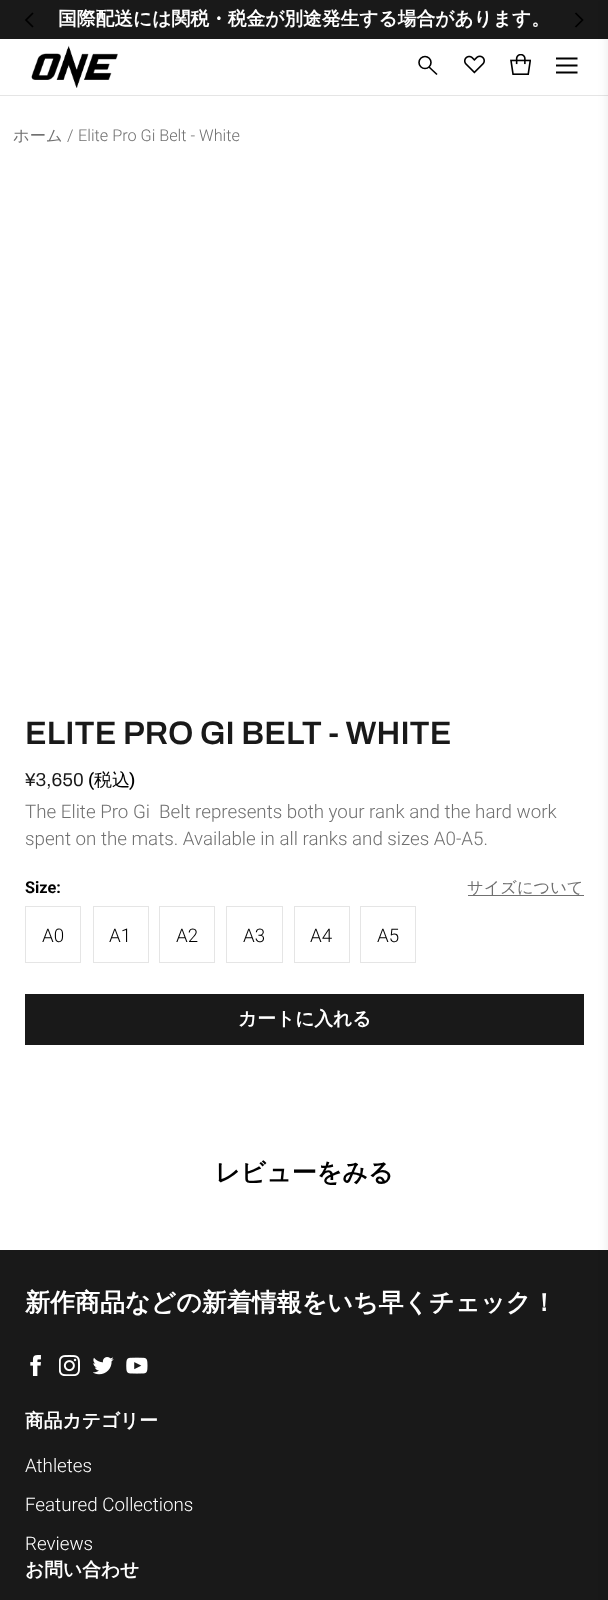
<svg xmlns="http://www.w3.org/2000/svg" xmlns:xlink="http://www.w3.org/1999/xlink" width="608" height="1600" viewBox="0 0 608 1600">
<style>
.cls-1{font:bold 18.75px WenQuanYi Zen Hei;fill:#ffffff}
.cls-2{font:500 16.25px WenQuanYi Zen Hei;fill:#707070}
.cls-3{font:300 16.25px Roboto;fill:#707070}
.cls-4{font:600 32.5px Archivo;fill:#191919}
.cls-5{font:18.75px Archivo;fill:#191919}
.cls-6{font:500 18px Roboto;fill:#000000}
.cls-7{font:500 18px WenQuanYi Zen Hei;fill:#000000}
.cls-8{font:300 18.75px Roboto;fill:#707070}
.cls-9{font:bold 16.25px Roboto;fill:#000000}
.cls-10{font:300 18.75px Roboto;fill:#000000}
.cls-11{font:bold 25px WenQuanYi Zen Hei;fill:#000000}
.cls-12{font:bold 25px WenQuanYi Zen Hei;fill:#ffffff}
.cls-13{font:300 18.75px Roboto;fill:#ffffff}
</style>
<rect width="100%" height="100%" fill="#ffffff"/>
<rect fill="#191919" x="0" y="0" width="608" height="39"/>
<path fill="none" stroke="#000000" stroke-width="1.7" d="M33 27L26 20L33 13"/>
<path fill="none" stroke="#000000" stroke-width="1.7" d="M575.5 13L582.5 20L575.5 27"/>
<rect fill="#e5e5e5" x="0" y="95" width="608" height="1"/>
<image xlink:href="image0.png" x="31" y="45" width="87" height="43"/>
<circle fill="none" stroke="#000000" stroke-width="1.6" cx="425" cy="62.5" r="6"/>
<path fill="none" stroke="#000000" stroke-width="1.6" d="M429 67L437 74.5"/>
<image xlink:href="image1.png" x="464" y="55" width="21" height="19"/>
<image xlink:href="image2.png" x="510" y="54" width="21" height="21"/>
<path fill="none" stroke="#000000" stroke-width="1.9" d="M556 58.5H577.5M556 65.5H577.5M556 72.5H577.5"/>
<rect fill="#191919" x="0" y="1250" width="608" height="350"/>
<rect fill="#000000" fill-opacity="0.1" filter="blur(6px)" x="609" y="1" width="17" height="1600"/>
<rect fill="#707070" x="468" y="895" width="116" height="1"/>
<rect fill="none" stroke="#e5e5e5" x="25.5" y="906.5" width="55" height="56"/>
<rect fill="none" stroke="#e5e5e5" x="93.5" y="906.5" width="55" height="56"/>
<rect fill="none" stroke="#e5e5e5" x="159.5" y="906.5" width="55" height="56"/>
<rect fill="none" stroke="#e5e5e5" x="226.5" y="906.5" width="56" height="56"/>
<rect fill="none" stroke="#e5e5e5" x="294.5" y="906.5" width="55" height="56"/>
<rect fill="none" stroke="#e5e5e5" x="360.5" y="906.5" width="55" height="56"/>
<rect fill="#191919" x="25" y="994" width="559" height="51"/>
<image xlink:href="image3.png" x="30" y="1355" width="11" height="21"/>
<image xlink:href="image4.png" x="59" y="1355" width="21" height="21"/>
<image xlink:href="image5.png" x="93" y="1357" width="21" height="18"/>
<image xlink:href="image6.png" x="126" y="1357" width="22" height="17"/>
<text class="cls-1" x="58" y="25">国際配送には関税・税金が別途発生する場合があります。</text>
<text class="cls-2" x="13" y="141">ホーム</text>
<text class="cls-3" x="67" y="141">/</text>
<text class="cls-3" x="78" y="141">Elite Pro Gi Belt - White</text>
<text class="cls-4" x="25" y="744">ELITE PRO GI BELT - WHITE</text>
<text class="cls-5" x="25" y="786">¥3,650</text>
<text class="cls-6" x="88" y="786">(</text>
<text class="cls-7" x="94" y="786">税込</text>
<text class="cls-6" x="129" y="786">)</text>
<text class="cls-8" xml:space="preserve"><tspan x="25" y="818">The Elite Pro Gi  Belt represents both your rank and the hard work</tspan><tspan x="25" y="845">spent on the mats. Available in all ranks and sizes A0-A5.</tspan></text>
<text class="cls-9" x="25" y="893">Size:</text>
<text class="cls-2" x="467" y="893">サイズについて</text>
<text class="cls-10" x="42" y="942">A0</text>
<text class="cls-10" x="109" y="942">A1</text>
<text class="cls-10" x="176" y="942">A2</text>
<text class="cls-10" x="243" y="942">A3</text>
<text class="cls-10" x="310" y="942">A4</text>
<text class="cls-10" x="377" y="942">A5</text>
<text class="cls-1" x="238" y="1025">カートに入れる</text>
<text class="cls-11" x="215" y="1181">レビューをみる</text>
<text class="cls-12" x="25" y="1311">新作商品などの新着情報をいち早くチェック！</text>
<text class="cls-1" x="25" y="1427">商品カテゴリー</text>
<text class="cls-13" x="25" y="1472">Athletes</text>
<text class="cls-13" x="25" y="1511">Featured Collections</text>
<text class="cls-13" x="25" y="1550">Reviews</text>
<text class="cls-1" x="25" y="1576">お問い合わせ</text>
</svg>
